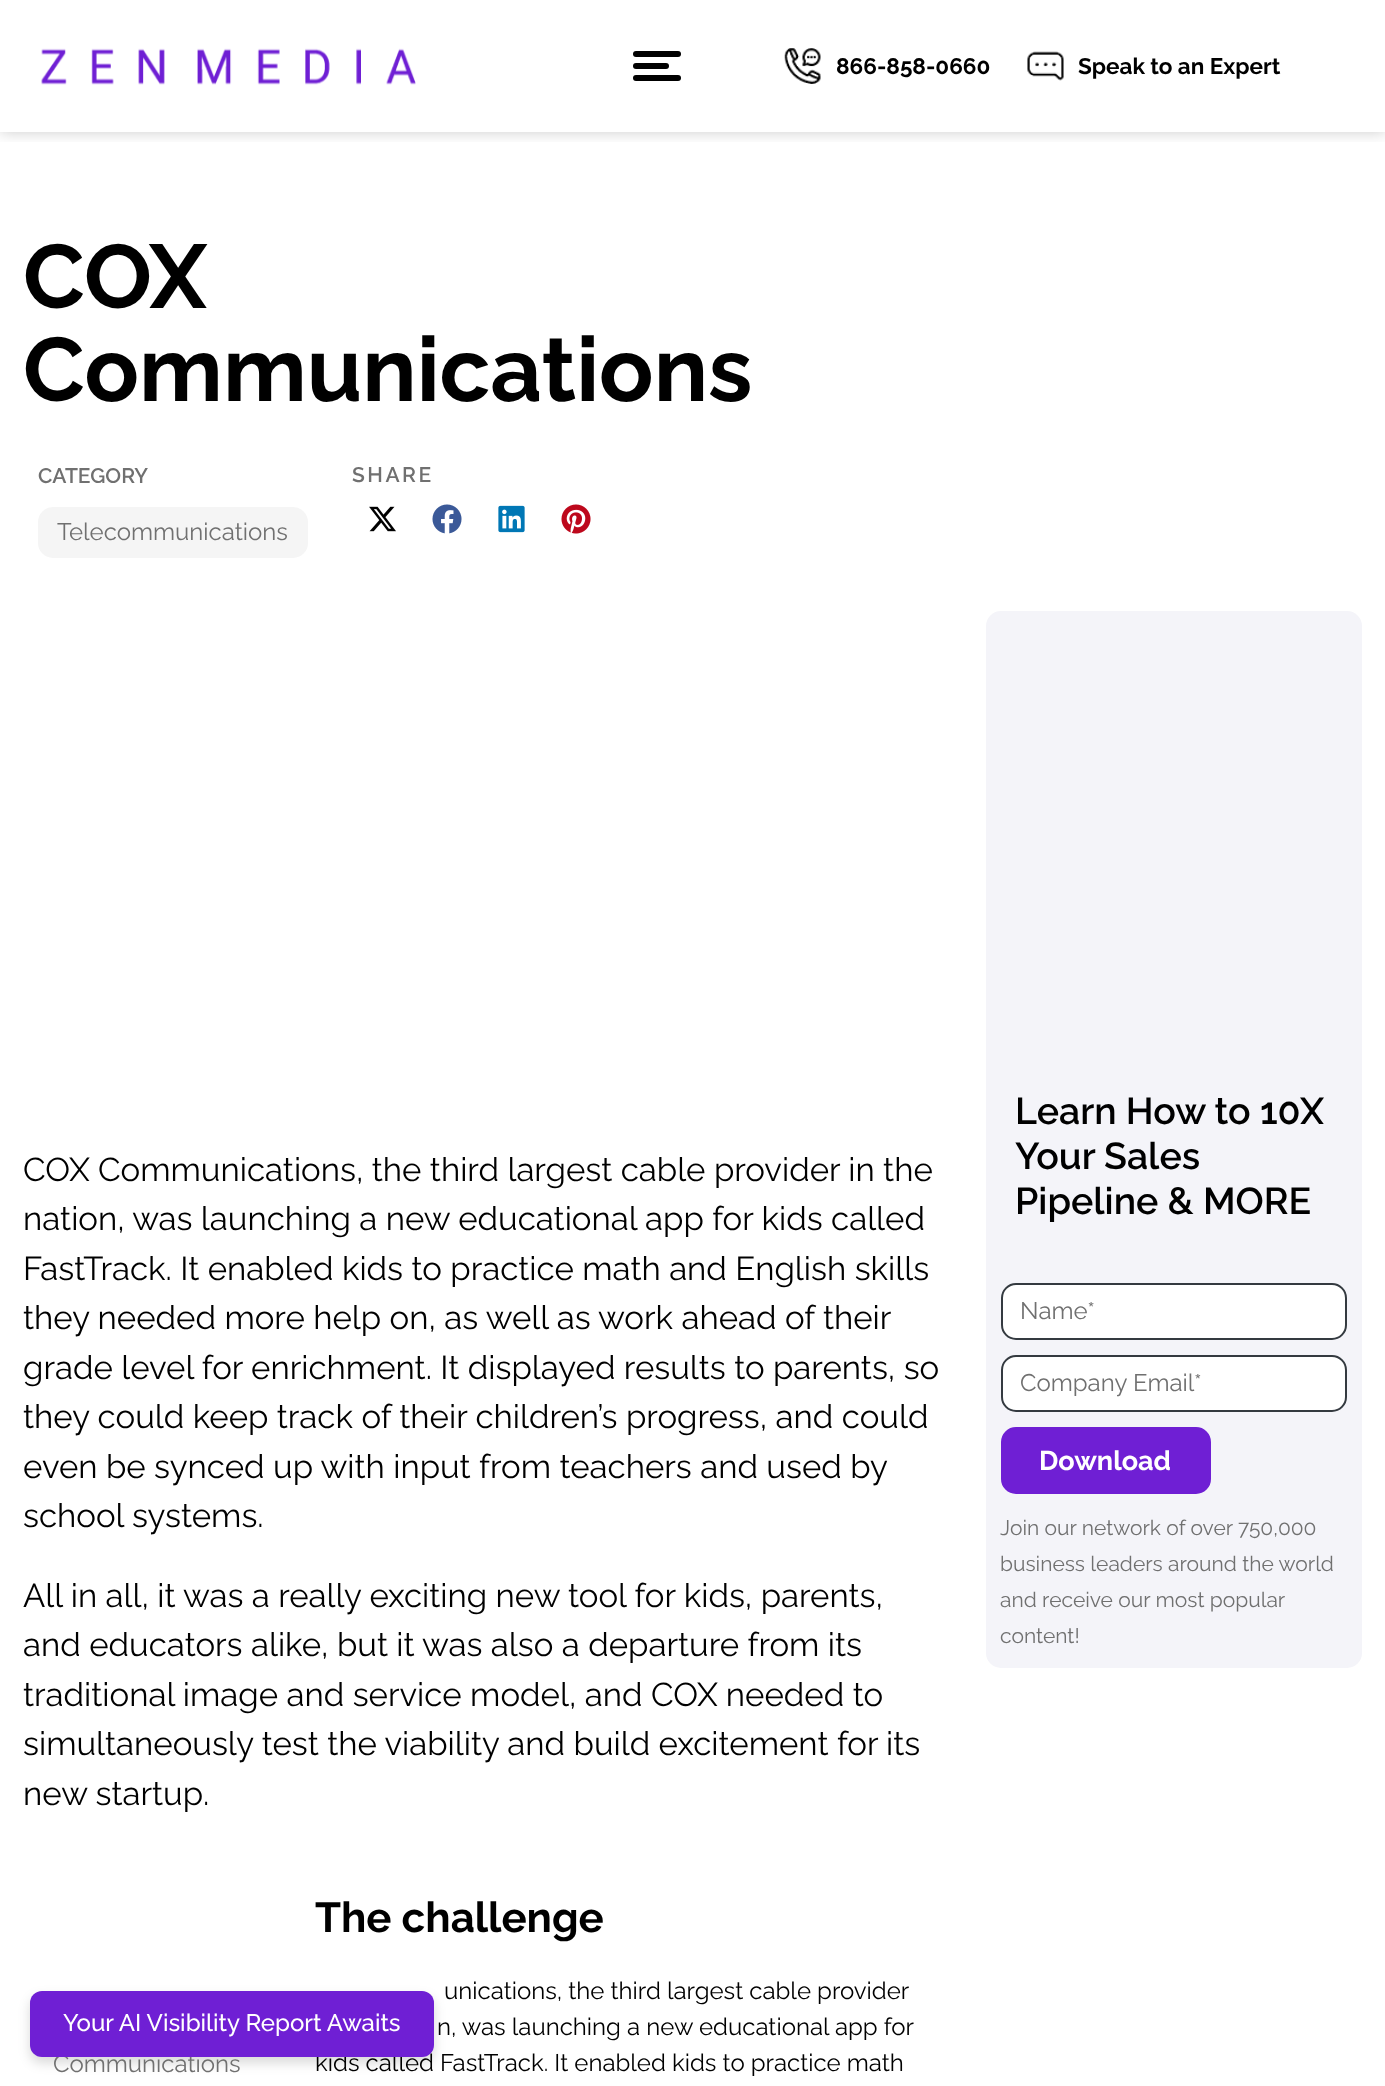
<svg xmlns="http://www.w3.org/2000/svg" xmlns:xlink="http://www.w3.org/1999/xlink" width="1385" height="2086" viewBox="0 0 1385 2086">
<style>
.cls-1{font:bold 22.5px Raleway;fill:#000000}
.cls-2{font:bold 90px Raleway;fill:#000000}
.cls-3{font:600 21px Raleway;fill:#707070}
.cls-4{font:24px Raleway;fill:#707070}
.cls-5{font:600 21px Raleway;letter-spacing:2.5px;fill:#707070}
.cls-6{font:33px Raleway;fill:#000000}
.cls-7{font:bold 42px Raleway;fill:#000000}
.cls-8{font:24px Raleway;fill:#000000}
.cls-9{font:600 37.5px Raleway;fill:#000000}
.cls-10{font:bold 27px Raleway;fill:#ffffff}
.cls-11{font:21px Raleway;fill:#707070}
.cls-12{font:500 24px Raleway;fill:#ffffff}
</style>
<defs>
<clipPath id="clip1"><rect x="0" y="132" width="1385" height="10"/></clipPath>
</defs>
<rect width="100%" height="100%" fill="#ffffff"/>
<g clip-path="url(#clip1)">
<rect fill="#000000" fill-opacity="0.2" filter="blur(7.5px)" x="0" y="0" width="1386" height="132"/>
</g>
<image xlink:href="image0.png" x="41" y="48" width="375" height="37"/>
<rect fill="#000000" x="633" y="51" width="48" height="6" rx="3"/>
<rect fill="#000000" x="633" y="63" width="36" height="6" rx="3"/>
<rect fill="#000000" x="633" y="75" width="48" height="6" rx="3"/>
<image xlink:href="image1.png" x="784" y="48" width="37" height="36"/>
<image xlink:href="image2.png" x="1027" y="51" width="37" height="30"/>
<rect fill="#f5f5f5" x="38" y="507" width="270" height="51" rx="15"/>
<image xlink:href="image3.png" x="369" y="506" width="27" height="26"/>
<image xlink:href="image4.png" x="432" y="504" width="30" height="30"/>
<image xlink:href="image5.png" x="498" y="505" width="27" height="28"/>
<image xlink:href="image6.png" x="561" y="504" width="30" height="30"/>
<rect fill="#f4f4f9" x="986" y="611" width="376" height="1057" rx="15"/>
<rect fill="#ffffff" stroke="#343a40" stroke-width="2" x="1002" y="1284" width="344" height="55" rx="14"/>
<rect fill="#ffffff" stroke="#343a40" stroke-width="2" x="1002" y="1356" width="344" height="55" rx="14"/>
<rect fill="#6f1fd4" stroke="#6f1fd4" stroke-width="2" x="1002" y="1428" width="208" height="65" rx="14"/>
<rect fill="#000000" fill-opacity="0.15" filter="blur(6px)" x="30" y="1997" width="404" height="66" rx="12"/>
<text class="cls-1" x="836" y="74">866-858-0660</text>
<text class="cls-1" x="1078" y="74">Speak to an Expert</text>
<text class="cls-2"><tspan x="23" y="308">COX</tspan><tspan x="23" y="401">Communications</tspan></text>
<text class="cls-3" x="38" y="483">CATEGORY</text>
<text class="cls-4" x="57" y="540">Telecommunications</text>
<text class="cls-5" x="352" y="482">SHARE</text>
<text class="cls-6"><tspan x="23" y="1181">COX Communications, the third largest cable provider in the</tspan><tspan x="23" y="1230">nation, was launching a new educational app for kids called</tspan><tspan x="23" y="1280">FastTrack. It enabled kids to practice math and English skills</tspan><tspan x="23" y="1329">they needed more help on, as well as work ahead of their</tspan><tspan x="23" y="1379">grade level for enrichment. It displayed results to parents, so</tspan><tspan x="23" y="1428">they could keep track of their children’s progress, and could</tspan><tspan x="23" y="1478">even be synced up with input from teachers and used by</tspan><tspan x="23" y="1527">school systems.</tspan></text>
<text class="cls-6"><tspan x="23" y="1607">All in all, it was a really exciting new tool for kids, parents,</tspan><tspan x="23" y="1656">and educators alike, but it was also a departure from its</tspan><tspan x="23" y="1706">traditional image and service model, and COX needed to</tspan><tspan x="23" y="1755">simultaneously test the viability and build excitement for its</tspan><tspan x="23" y="1805">new startup.</tspan></text>
<text class="cls-4" x="53" y="2072">Communications</text>
<text class="cls-7" x="315" y="1932">The challenge</text>
<text class="cls-8" x="444" y="1999">unications, the third largest cable provider</text>
<text class="cls-8" x="437" y="2035">n, was launching a new educational app for</text>
<text class="cls-8" x="315" y="2071">kids called FastTrack. It enabled kids to practice math</text>
<text class="cls-9"><tspan x="1015" y="1124">Learn How to 10X</tspan><tspan x="1015" y="1169">Your Sales</tspan><tspan x="1015" y="1214">Pipeline &amp; MORE</tspan></text>
<text class="cls-4" x="1020" y="1319">Name*</text>
<text class="cls-4" x="1020" y="1391">Company Email*</text>
<text class="cls-10" x="1039" y="1470">Download</text>
<text class="cls-11"><tspan x="1000" y="1535">Join our network of over 750,000</tspan><tspan x="1000" y="1571">business leaders around the world</tspan><tspan x="1000" y="1607">and receive our most popular</tspan><tspan x="1000" y="1643">content!</tspan></text>
<rect fill="#6f1fd4" x="30" y="1991" width="404" height="66" rx="12"/>
<text class="cls-12" x="63" y="2031">Your AI Visibility Report Awaits</text>
</svg>
